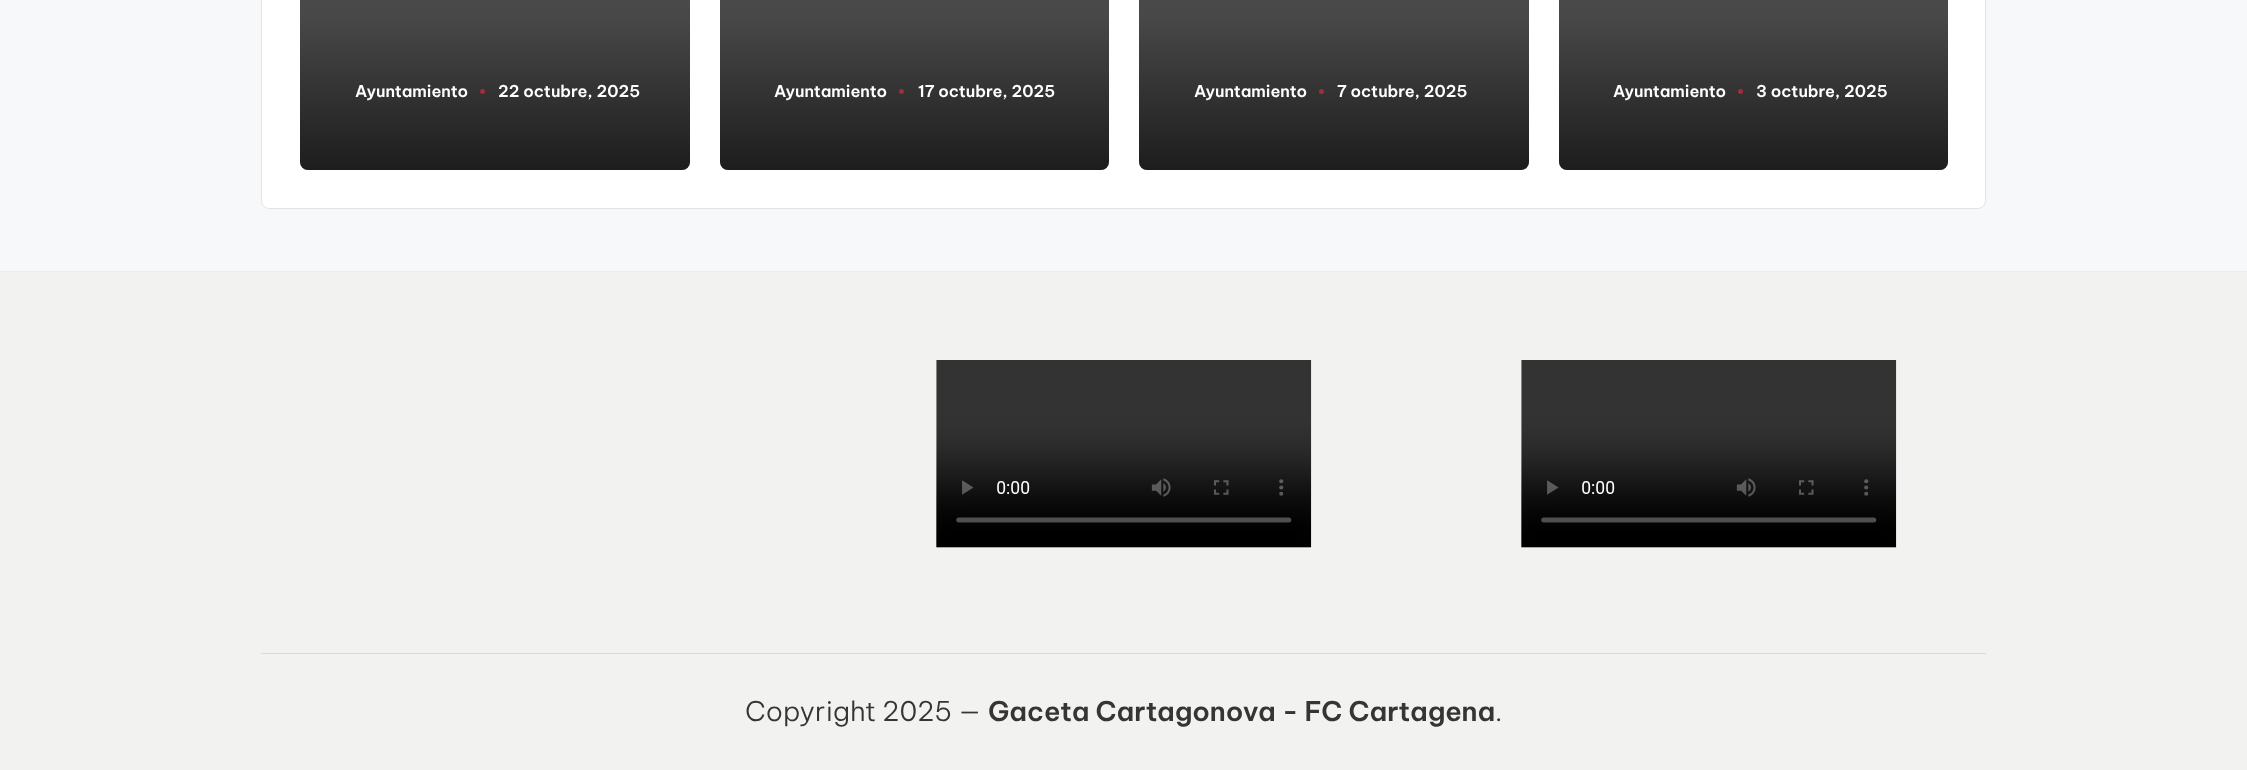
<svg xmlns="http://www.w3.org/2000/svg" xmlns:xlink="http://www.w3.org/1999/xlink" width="2247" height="770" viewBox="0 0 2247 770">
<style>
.cls-1{font:600 16.25px Be Vietnam Pro;fill:#ffffff}
.cls-2{font:300 27.1px Be Vietnam Pro;fill:#363533}
.cls-3{font:600 27.1px Be Vietnam Pro;fill:#363533}
</style>
<defs>
<linearGradient id="g1" gradientUnits="userSpaceOnUse" x1="495" y1="-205" x2="495" y2="170"><stop offset="0" stop-color="#000000" stop-opacity="0.4"/><stop offset="0.59" stop-color="#000000" stop-opacity="0.5"/><stop offset="1" stop-color="#000000" stop-opacity="0.8"/></linearGradient>
<linearGradient id="g2" gradientUnits="userSpaceOnUse" x1="914" y1="-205" x2="914" y2="170"><stop offset="0" stop-color="#000000" stop-opacity="0.4"/><stop offset="0.59" stop-color="#000000" stop-opacity="0.5"/><stop offset="1" stop-color="#000000" stop-opacity="0.8"/></linearGradient>
<linearGradient id="g3" gradientUnits="userSpaceOnUse" x1="1334" y1="-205" x2="1334" y2="170"><stop offset="0" stop-color="#000000" stop-opacity="0.4"/><stop offset="0.59" stop-color="#000000" stop-opacity="0.5"/><stop offset="1" stop-color="#000000" stop-opacity="0.8"/></linearGradient>
<linearGradient id="g4" gradientUnits="userSpaceOnUse" x1="1753" y1="-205" x2="1753" y2="170"><stop offset="0" stop-color="#000000" stop-opacity="0.4"/><stop offset="0.59" stop-color="#000000" stop-opacity="0.5"/><stop offset="1" stop-color="#000000" stop-opacity="0.8"/></linearGradient>
</defs>
<rect width="100%" height="100%" fill="#f7f8f9"/>
<rect fill="#ffffff" x="261" y="-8" width="1725" height="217" rx="8"/>
<rect fill="none" stroke="#b9b9b9" stroke-opacity="0.4" x="261.5" y="-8.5" width="1724" height="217" rx="7.5"/>
<rect fill="#909090" x="300" y="-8" width="390" height="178" rx="8"/>
<rect fill="url(#g1)" x="300" y="-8" width="390" height="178" rx="8"/>
<circle fill="#a82a3a" cx="482.5" cy="91.5" r="2.5"/>
<rect fill="#909090" x="720" y="-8" width="389" height="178" rx="8"/>
<rect fill="url(#g2)" x="720" y="-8" width="389" height="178" rx="8"/>
<circle fill="#a82a3a" cx="901.5" cy="91.5" r="2.5"/>
<rect fill="#909090" x="1139" y="-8" width="390" height="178" rx="8"/>
<rect fill="url(#g3)" x="1139" y="-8" width="390" height="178" rx="8"/>
<circle fill="#a82a3a" cx="1321.5" cy="91.5" r="2.5"/>
<rect fill="#909090" x="1559" y="-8" width="389" height="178" rx="8"/>
<rect fill="url(#g4)" x="1559" y="-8" width="389" height="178" rx="8"/>
<circle fill="#a82a3a" cx="1740.5" cy="91.5" r="2.5"/>
<rect fill="#f2f2f1" x="0" y="272" width="2247" height="498"/>
<rect fill="#ffe7d2" x="0" y="271" width="2247" height="1"/>
<image xlink:href="image0.png" x="936" y="360" width="376" height="188"/>
<image xlink:href="image1.png" x="1521" y="360" width="376" height="188"/>
<rect fill="#dadad9" x="261" y="653" width="1725" height="1"/>
<text class="cls-1" x="355" y="97">Ayuntamiento</text>
<text class="cls-1" x="498" y="97">22 octubre, 2025</text>
<text class="cls-1" x="774" y="97">Ayuntamiento</text>
<text class="cls-1" x="918" y="97">17 octubre, 2025</text>
<text class="cls-1" x="1194" y="97">Ayuntamiento</text>
<text class="cls-1" x="1337" y="97">7 octubre, 2025</text>
<text class="cls-1" x="1613" y="97">Ayuntamiento</text>
<text class="cls-1" x="1756" y="97">3 octubre, 2025</text>
<text class="cls-2" x="745" y="721">Copyright 2025 —</text>
<text class="cls-3" x="988" y="721">Gaceta Cartagonova - FC Cartagena</text>
<text class="cls-2" x="1495" y="721">.</text>
</svg>
